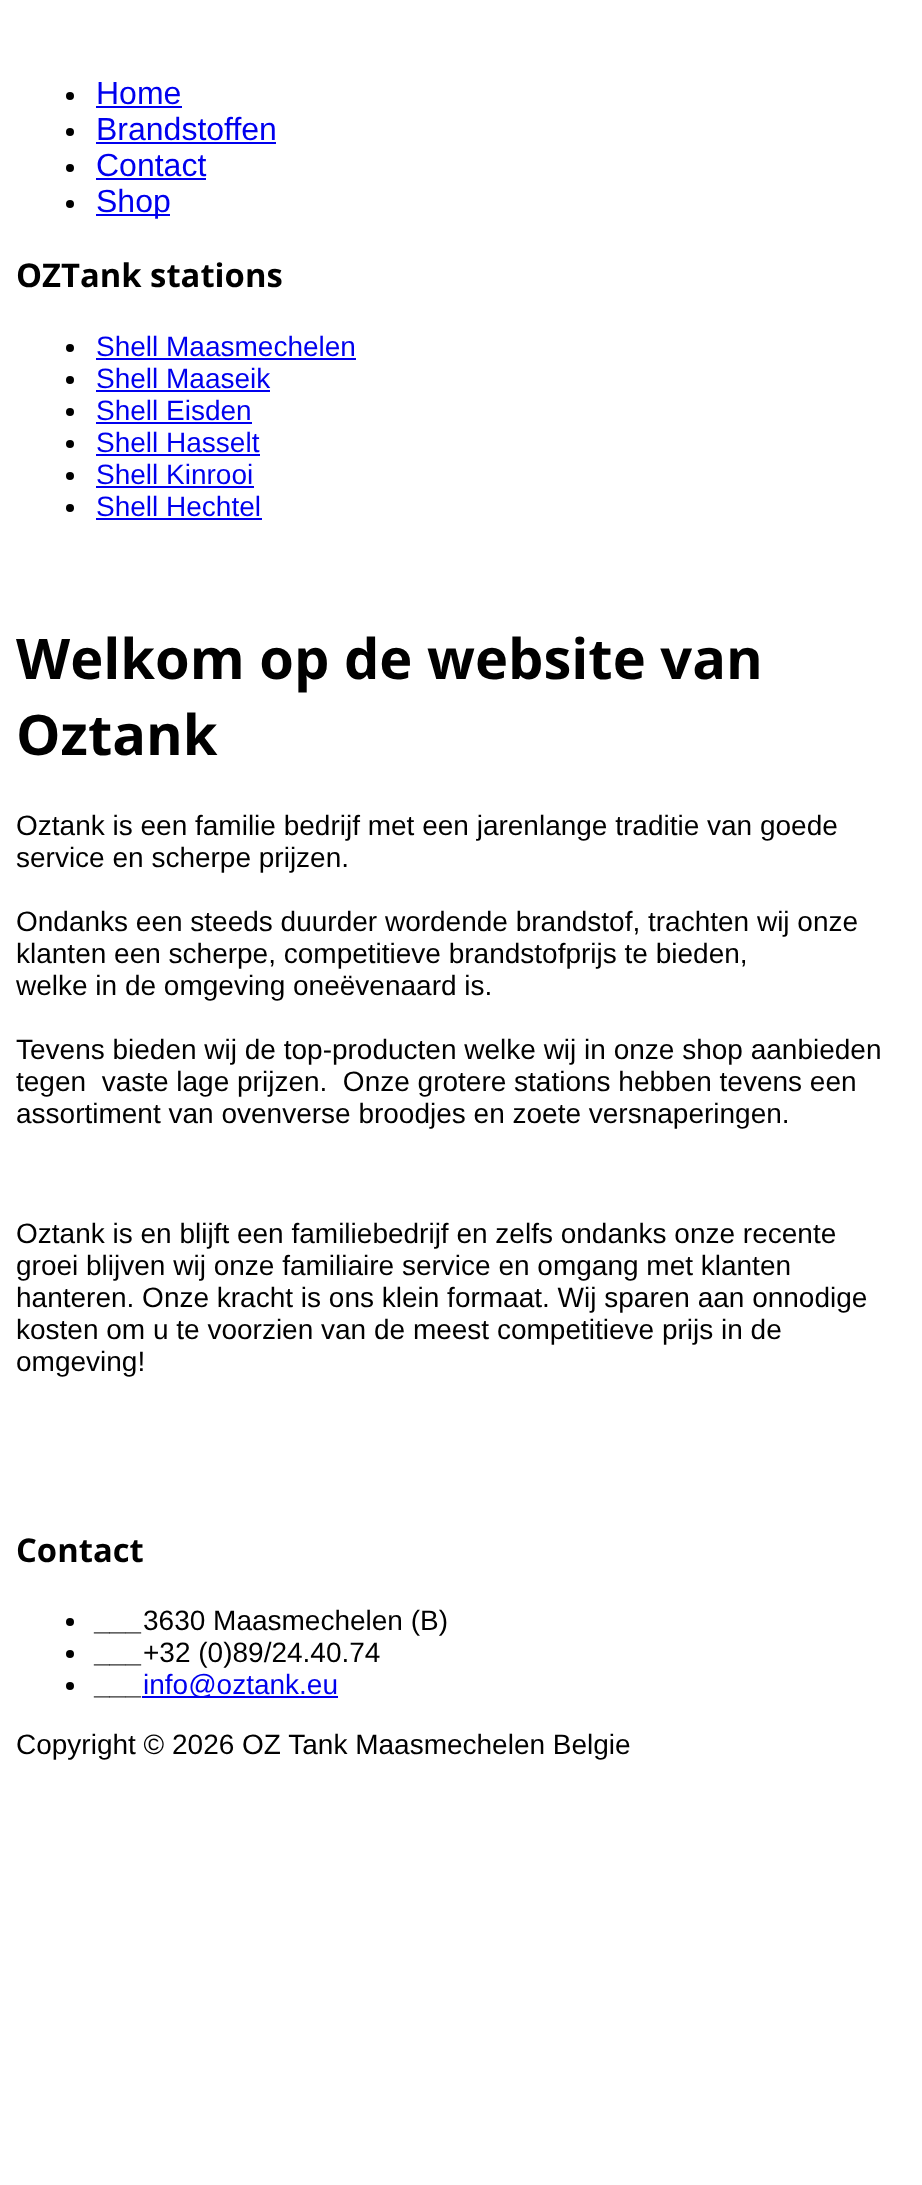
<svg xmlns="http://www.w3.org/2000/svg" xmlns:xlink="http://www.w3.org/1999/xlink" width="922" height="2185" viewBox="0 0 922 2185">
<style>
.cls-1{font:32px Liberation Sans;fill:#0000ee}
.cls-2{font:bold 32.75px Open Sans;fill:#000000}
.cls-3{font:28px Liberation Sans;fill:#0000ee}
.cls-4{font:bold 56px Open Sans;fill:#000000}
.cls-5{font:28px Liberation Sans;fill:#000000}
.cls-6{font:italic 28px Liberation Sans;fill:#000000}
</style>
<rect width="100%" height="100%" fill="#ffffff"/>
<circle fill="#000000" cx="70" cy="96" r="4"/>
<rect fill="#0000ee" x="96" y="106" width="86" height="2"/>
<circle fill="#000000" cx="70" cy="132" r="4"/>
<rect fill="#0000ee" x="96" y="142" width="180" height="2"/>
<circle fill="#000000" cx="70" cy="168" r="4"/>
<rect fill="#0000ee" x="96" y="178" width="110" height="2"/>
<circle fill="#000000" cx="70" cy="204" r="4"/>
<rect fill="#0000ee" x="96" y="214" width="74" height="2"/>
<circle fill="#000000" cx="70" cy="348" r="4"/>
<rect fill="#0000ee" x="96" y="358" width="260" height="2"/>
<circle fill="#000000" cx="70" cy="380" r="4"/>
<rect fill="#0000ee" x="96" y="390" width="174" height="2"/>
<circle fill="#000000" cx="70" cy="412" r="4"/>
<rect fill="#0000ee" x="96" y="422" width="156" height="2"/>
<circle fill="#000000" cx="70" cy="444" r="4"/>
<rect fill="#0000ee" x="96" y="454" width="164" height="2"/>
<circle fill="#000000" cx="70" cy="476" r="4"/>
<rect fill="#0000ee" x="96" y="486" width="158" height="2"/>
<circle fill="#000000" cx="70" cy="508" r="4"/>
<rect fill="#0000ee" x="96" y="518" width="166" height="2"/>
<circle fill="#000000" cx="70" cy="1622" r="4"/>
<circle fill="#000000" cx="70" cy="1654" r="4"/>
<circle fill="#000000" cx="70" cy="1686" r="4"/>
<rect fill="#0000ee" x="142" y="1696" width="196" height="2"/>
<text class="cls-1"><tspan x="96" y="104">Home</tspan><tspan x="96" y="140">Brandstoffen</tspan><tspan x="96" y="176">Contact</tspan><tspan x="96" y="212">Shop</tspan></text>
<text class="cls-2" x="16" y="287">OZTank stations</text>
<text class="cls-3"><tspan x="96" y="356">Shell Maasmechelen</tspan><tspan x="96" y="388">Shell Maaseik</tspan><tspan x="96" y="420">Shell Eisden</tspan><tspan x="96" y="452">Shell Hasselt</tspan><tspan x="96" y="484">Shell Kinrooi</tspan><tspan x="96" y="516">Shell Hechtel</tspan></text>
<text class="cls-4"><tspan x="16" y="679">Welkom op de website van</tspan><tspan x="16" y="755">Oztank</tspan></text>
<text class="cls-5"><tspan x="16" y="835">Oztank is een familie bedrijf met een jarenlange traditie van goede</tspan><tspan x="16" y="867">service en scherpe prijzen.</tspan></text>
<text class="cls-5"><tspan x="16" y="931">Ondanks een steeds duurder wordende brandstof, trachten wij onze</tspan><tspan x="16" y="963">klanten een scherpe, competitieve brandstofprijs te bieden,</tspan><tspan x="16" y="995">welke in de omgeving oneëvenaard is.</tspan></text>
<text class="cls-5" xml:space="preserve"><tspan x="16" y="1059">Tevens bieden wij de top-producten welke wij in onze shop aanbieden</tspan><tspan x="16" y="1091">tegen  vaste lage prijzen.  Onze grotere stations hebben tevens een</tspan><tspan x="16" y="1123">assortiment van ovenverse broodjes en zoete versnaperingen.</tspan></text>
<text class="cls-5"><tspan x="16" y="1243">Oztank is en blijft een familiebedrijf en zelfs ondanks onze recente</tspan><tspan x="16" y="1275">groei blijven wij onze familiaire service en omgang met klanten</tspan><tspan x="16" y="1307">hanteren. Onze kracht is ons klein formaat. Wij sparen aan onnodige</tspan><tspan x="16" y="1339">kosten om u te voorzien van de meest competitieve prijs in de</tspan><tspan x="16" y="1371">omgeving!</tspan></text>
<text class="cls-2" x="16" y="1562">Contact</text>
<text class="cls-5" x="143" y="1630">3630 Maasmechelen (B)</text>
<text class="cls-6" x="96" y="1630">___</text>
<text class="cls-5" x="143" y="1662">+32 (0)89/24.40.74</text>
<text class="cls-6" x="96" y="1662">___</text>
<text class="cls-3" x="143" y="1694">info@oztank.eu</text>
<text class="cls-6" x="96" y="1694">___</text>
<text class="cls-5" x="16" y="1754">Copyright © 2026 OZ Tank Maasmechelen Belgie</text>
</svg>
